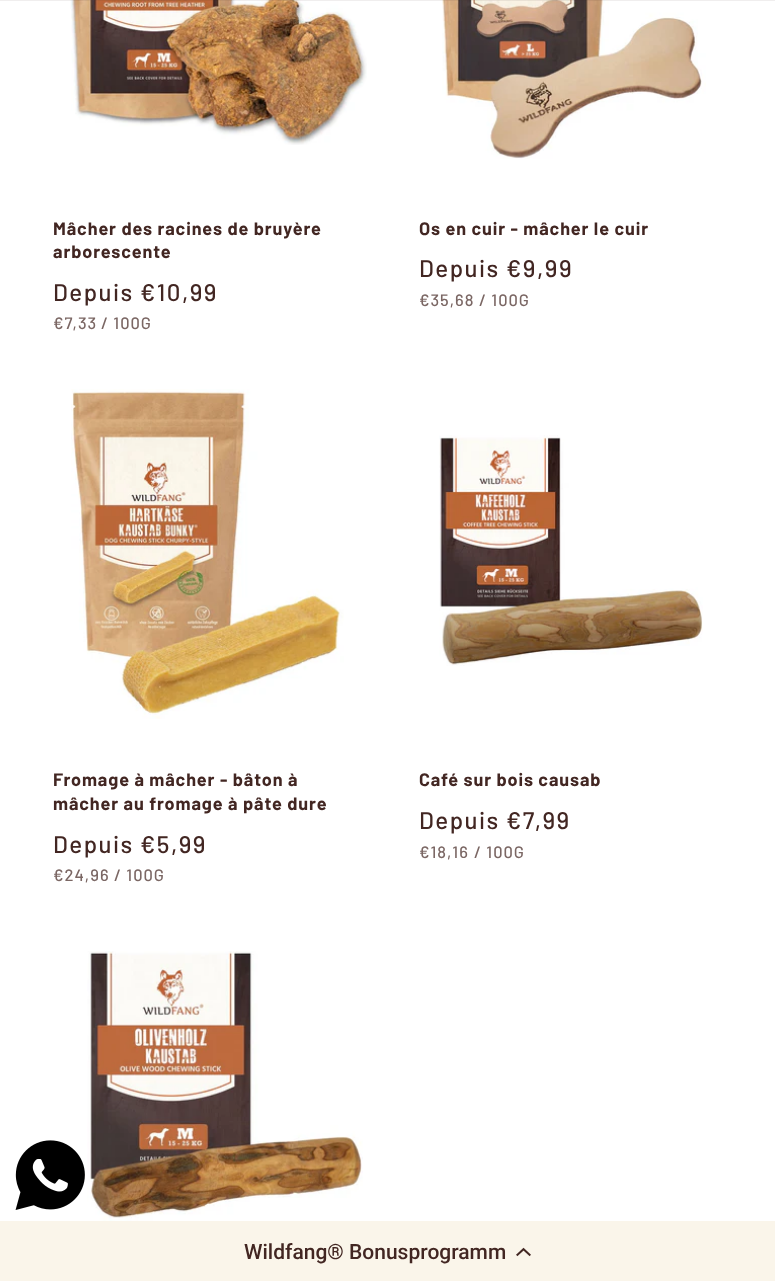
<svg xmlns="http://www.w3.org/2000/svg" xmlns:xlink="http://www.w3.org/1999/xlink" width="775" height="1281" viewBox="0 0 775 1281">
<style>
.cls-1{font:bold 18px Barlow;letter-spacing:0.9px;fill:#422622}
.cls-2{font:500 24px Barlow;letter-spacing:1.5px;fill:#422622}
.cls-3{font:500 16.5px Barlow;letter-spacing:1px;fill:#7b6764}
.cls-4{font:500 21px Roboto;fill:#422622}
</style>
<rect width="100%" height="100%" fill="#ffffff"/>
<image xlink:href="image0.png" x="70" y="0" width="297" height="145"/>
<image xlink:href="image1.png" x="442" y="0" width="264" height="159"/>
<rect fill="#422622" fill-opacity="0.08" x="0" y="0" width="775" height="1"/>
<image xlink:href="image2.png" x="71" y="389" width="273" height="330"/>
<image xlink:href="image3.png" x="439" y="435" width="264" height="231"/>
<image xlink:href="image4.png" x="87" y="951" width="276" height="270"/>
<image xlink:href="image5.png" x="15" y="1140" width="70" height="70"/>
<rect fill="#faf5ea" x="0" y="1221" width="775" height="60"/>
<image xlink:href="image6.png" x="516" y="1247" width="15" height="10"/>
<text class="cls-1"><tspan x="53" y="235">Mâcher des racines de bruyère</tspan><tspan x="53" y="258">arborescente</tspan></text>
<text class="cls-2" x="53" y="301">Depuis €10,99</text>
<text class="cls-3" x="53" y="329">€7,33</text>
<text class="cls-3" x="101" y="329">/ 100G</text>
<text class="cls-1" x="419" y="235">Os en cuir - mâcher le cuir</text>
<text class="cls-2" x="419" y="277">Depuis €9,99</text>
<text class="cls-3" x="419" y="306">€35,68</text>
<text class="cls-3" x="479" y="306">/ 100G</text>
<text class="cls-1"><tspan x="53" y="786">Fromage à mâcher - bâton à</tspan><tspan x="53" y="810">mâcher au fromage à pâte dure</tspan></text>
<text class="cls-2" x="53" y="853">Depuis €5,99</text>
<text class="cls-3" x="53" y="881">€24,96</text>
<text class="cls-3" x="114" y="881">/ 100G</text>
<text class="cls-1" x="419" y="786">Café sur bois causab</text>
<text class="cls-2" x="419" y="829">Depuis €7,99</text>
<text class="cls-3" x="419" y="858">€18,16</text>
<text class="cls-3" x="474" y="858">/ 100G</text>
<text class="cls-4" x="244" y="1259">Wildfang® Bonusprogramm</text>
</svg>
